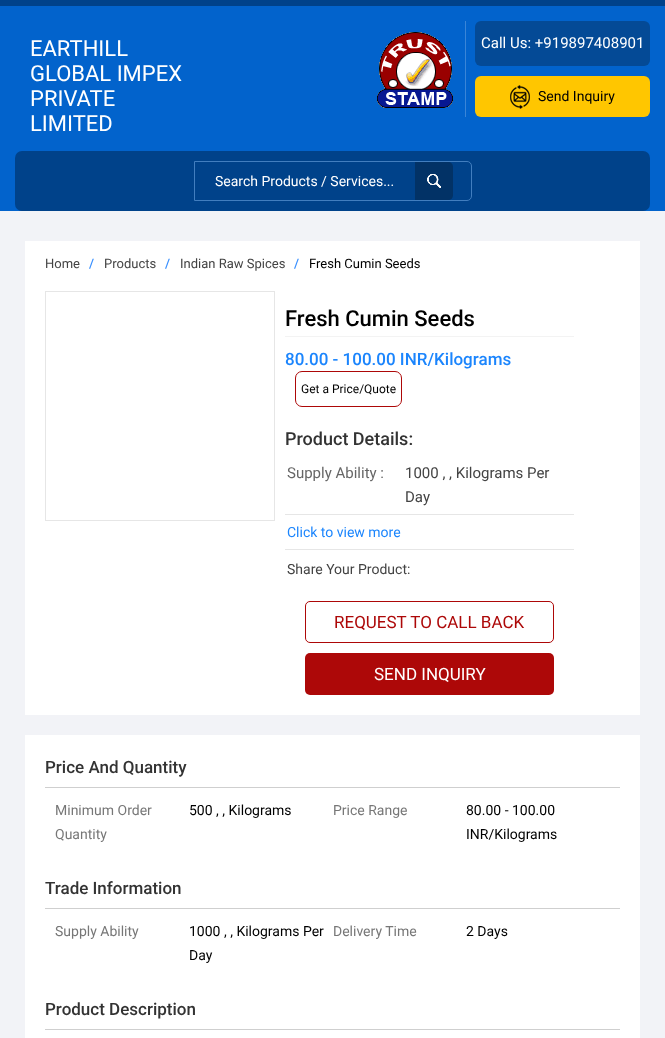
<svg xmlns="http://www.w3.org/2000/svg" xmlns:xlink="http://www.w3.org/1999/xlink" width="665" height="1038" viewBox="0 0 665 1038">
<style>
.cls-1{font:22px Roboto;fill:#ffffff}
.cls-2{font:15px Roboto;fill:#ffffff}
.cls-3{font:14px Roboto;fill:#000000}
.cls-4{font:14px Roboto;fill:#ffffff}
.cls-5{font:13px Roboto;fill:#434343}
.cls-6{font:500 13px Roboto;fill:#3990ff}
.cls-7{font:13px Roboto;fill:#000000}
.cls-8{font:500 22px Roboto;fill:#000000}
.cls-9{font:500 17px Roboto;fill:#1b85fd}
.cls-10{font:12px Roboto;fill:#000000}
.cls-11{font:500 18px Roboto;fill:#333333}
.cls-12{font:15px Roboto;fill:#666666}
.cls-13{font:15px Roboto;fill:#434343}
.cls-14{font:14px Roboto;fill:#1b85fd}
.cls-15{font:14px Roboto;fill:#434343}
.cls-16{font:17px Roboto;fill:#ad0808}
.cls-17{font:17px Roboto;fill:#ffffff}
.cls-18{font:500 17px Roboto;fill:#333333}
.cls-19{font:14px Roboto;fill:#777777}
</style>
<rect width="100%" height="100%" fill="#f2f3f7"/>
<rect fill="#0263cc" x="0" y="6" width="665" height="205"/>
<rect fill="#00428a" x="0" y="0" width="665" height="6"/>
<image xlink:href="image0.png" x="377" y="32" width="76" height="76"/>
<rect fill="#3a85d7" x="465" y="21" width="1" height="96"/>
<rect fill="#044a96" x="475" y="21" width="175" height="45" rx="6"/>
<rect fill="#ffc600" x="475" y="76" width="175" height="41" rx="6"/>
<image xlink:href="image1.png" x="510" y="85" width="20" height="24"/>
<rect fill="#00428a" x="15" y="151" width="635" height="60" rx="7"/>
<path fill="none" stroke="#427ebf" d="M194.5 161.5H467C469.5 161.5 471.5 163.5 471.5 166V196C471.5 198.5 469.5 200.5 467 200.5H194.5Z"/>
<path fill="#023266" d="M415 162H448C451 162 453 164 453 167V195C453 198 451 200 448 200H415Z"/>
<image xlink:href="image2.png" x="427" y="174" width="14" height="14"/>
<rect fill="#ffffff" x="25" y="241" width="615" height="474"/>
<rect fill="none" stroke="#e6e6e6" x="45.5" y="291.5" width="229" height="229"/>
<rect fill="#f3f3f3" x="285" y="336" width="289" height="1"/>
<rect fill="none" stroke="#ad0808" x="295.5" y="371.5" width="106" height="35" rx="6.5"/>
<rect fill="#e6e6e6" x="285" y="514" width="289" height="1"/>
<rect fill="#e6e6e6" x="285" y="549" width="289" height="1"/>
<rect fill="none" stroke="#ad0808" x="305.5" y="601.5" width="248" height="41" rx="4.5"/>
<rect fill="#ad0808" x="305" y="653" width="249" height="42" rx="5"/>
<rect fill="#ffffff" x="25" y="735" width="615" height="303"/>
<rect fill="#cfcfcf" x="45" y="787" width="575" height="1"/>
<rect fill="#cfcfcf" x="45" y="908" width="575" height="1"/>
<rect fill="#cfcfcf" x="45" y="1029" width="575" height="1"/>
<text class="cls-1"><tspan x="30" y="56">EARTHILL</tspan><tspan x="30" y="81">GLOBAL IMPEX</tspan><tspan x="30" y="106">PRIVATE</tspan><tspan x="30" y="131">LIMITED</tspan></text>
<text class="cls-2" x="481" y="48">Call Us: +919897408901</text>
<text class="cls-3" x="538" y="101">Send Inquiry</text>
<text class="cls-4" x="215" y="186">Search Products / Services...</text>
<text class="cls-5" x="45" y="268">Home</text>
<text class="cls-6" x="89" y="268">/</text>
<text class="cls-5" x="104" y="268">Products</text>
<text class="cls-6" x="165" y="268">/</text>
<text class="cls-5" x="180" y="268">Indian Raw Spices</text>
<text class="cls-6" x="294" y="268">/</text>
<text class="cls-7" x="309" y="268">Fresh Cumin Seeds</text>
<text class="cls-8" x="285" y="326">Fresh Cumin Seeds</text>
<text class="cls-9" x="285" y="365">80.00 - 100.00 INR/Kilograms</text>
<text class="cls-10" x="301" y="393">Get a Price/Quote</text>
<text class="cls-11" x="285" y="445">Product Details:</text>
<text class="cls-12" x="287" y="478">Supply Ability :</text>
<text class="cls-13"><tspan x="405" y="478">1000 , , Kilograms Per</tspan><tspan x="405" y="502">Day</tspan></text>
<text class="cls-14" x="287" y="537">Click to view more</text>
<text class="cls-15" x="287" y="574">Share Your Product:</text>
<text class="cls-16" x="334" y="628">REQUEST TO CALL BACK</text>
<text class="cls-17" x="374" y="680">SEND INQUIRY</text>
<text class="cls-18" x="45" y="773">Price And Quantity</text>
<text class="cls-19"><tspan x="55" y="815">Minimum Order</tspan><tspan x="55" y="839">Quantity</tspan></text>
<text class="cls-3" x="189" y="815">500 , , Kilograms</text>
<text class="cls-19" x="333" y="815">Price Range</text>
<text class="cls-3"><tspan x="466" y="815">80.00 - 100.00</tspan><tspan x="466" y="839">INR/Kilograms</tspan></text>
<text class="cls-18" x="45" y="894">Trade Information</text>
<text class="cls-19" x="55" y="936">Supply Ability</text>
<text class="cls-3"><tspan x="189" y="936">1000 , , Kilograms Per</tspan><tspan x="189" y="960">Day</tspan></text>
<text class="cls-19" x="333" y="936">Delivery Time</text>
<text class="cls-3" x="466" y="936">2 Days</text>
<text class="cls-18" x="45" y="1015">Product Description</text>
</svg>
